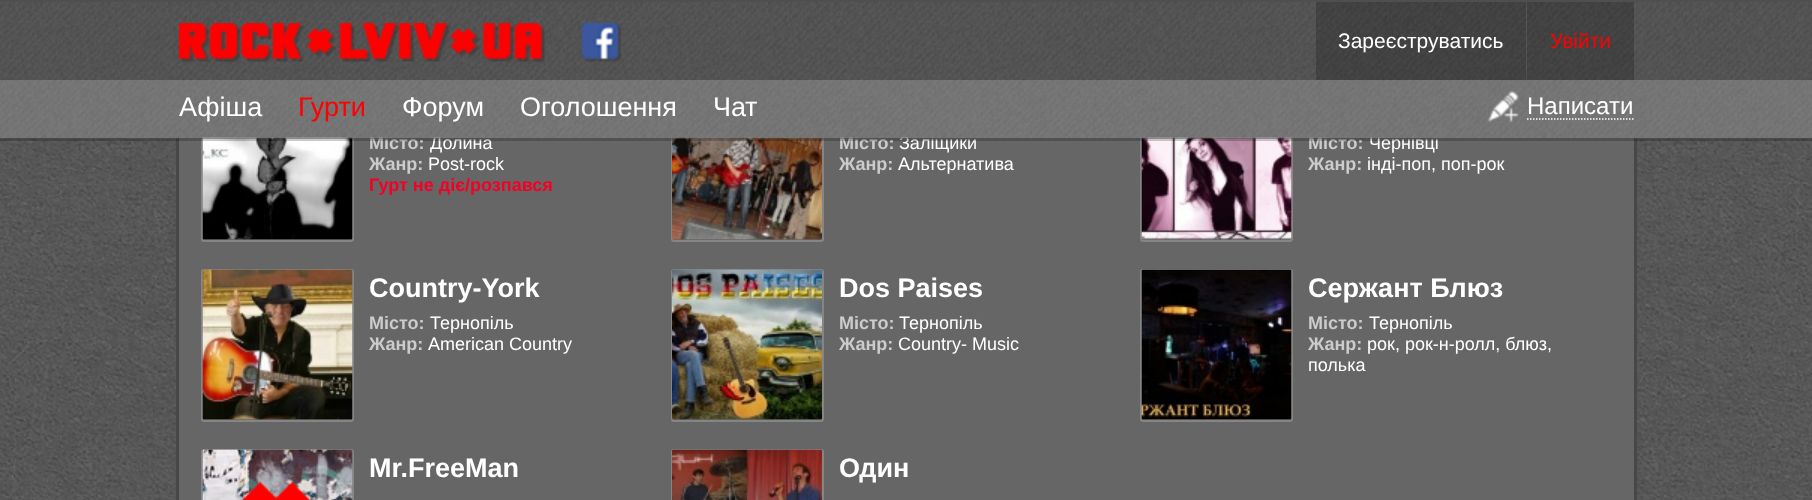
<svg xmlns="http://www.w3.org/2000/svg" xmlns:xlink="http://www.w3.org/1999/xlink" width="1812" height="500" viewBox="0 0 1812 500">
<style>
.cls-1{font:bold 18px Liberation Sans;fill:#cccccc}
.cls-2{font:18px Liberation Sans;fill:#ffffff}
.cls-3{font:bold 18px Liberation Sans;fill:#f50025}
.cls-4{font:21px Liberation Sans;fill:#ff0000}
.cls-5{font:21px Liberation Sans;fill:#ffffff}
.cls-6{font:27px Liberation Sans;fill:#ffffff}
.cls-7{font:27px Liberation Sans;fill:#ff0000}
.cls-8{font:24px Liberation Sans;fill:#ffffff}
.cls-9{font:bold 27px Liberation Sans;fill:#ffffff}
</style>
<rect width="100%" height="100%" fill="#ffffff"/>
<image xlink:href="image0.png" x="0" y="137" width="1812" height="363"/>
<rect fill="#4f4f4f" x="0" y="0" width="1812" height="2"/>
<rect fill="#666666" x="179" y="137" width="1455" height="363"/>
<rect fill="#474747" x="1634" y="137" width="3" height="363"/>
<rect fill="#474747" x="176" y="137" width="3" height="363"/>
<rect fill="none" stroke="#858585" stroke-width="2" x="202" y="90" width="151" height="151" rx="2"/>
<image xlink:href="image5.png" x="202" y="137" width="151" height="103"/>
<rect fill="none" stroke="#858585" stroke-width="2" x="672" y="90" width="151" height="151" rx="2"/>
<image xlink:href="image6.png" x="672" y="137" width="150" height="103"/>
<rect fill="none" stroke="#858585" stroke-width="2" x="1141" y="90" width="151" height="151" rx="2"/>
<image xlink:href="image7.png" x="1141" y="137" width="151" height="103"/>
<rect fill="none" stroke="#858585" stroke-width="2" x="202" y="270" width="151" height="151" rx="2"/>
<image xlink:href="image8.png" x="202" y="269" width="151" height="151"/>
<rect fill="none" stroke="#858585" stroke-width="2" x="672" y="270" width="151" height="151" rx="2"/>
<image xlink:href="image9.png" x="672" y="269" width="150" height="151"/>
<rect fill="none" stroke="#858585" stroke-width="2" x="1141" y="270" width="151" height="151" rx="2"/>
<image xlink:href="image10.png" x="1141" y="269" width="151" height="151"/>
<rect fill="none" stroke="#858585" stroke-width="2" x="202" y="450" width="151" height="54" rx="2"/>
<image xlink:href="image11.png" x="202" y="449" width="151" height="51"/>
<rect fill="none" stroke="#858585" stroke-width="2" x="672" y="450" width="151" height="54" rx="2"/>
<image xlink:href="image12.png" x="672" y="449" width="150" height="51"/>
<text class="cls-1" x="369" y="149">Місто:</text>
<text class="cls-2" x="430" y="149">Долина</text>
<text class="cls-1" x="369" y="170">Жанр:</text>
<text class="cls-2" x="428" y="170">Post-rock</text>
<text class="cls-3" x="369" y="191">Гурт не діє/розпався</text>
<text class="cls-1" x="839" y="149">Місто:</text>
<text class="cls-2" x="899" y="149">Заліщики</text>
<text class="cls-1" x="839" y="170">Жанр:</text>
<text class="cls-2" x="898" y="170">Альтернатива</text>
<text class="cls-1" x="1308" y="149">Місто:</text>
<text class="cls-2" x="1369" y="149">Чернівці</text>
<rect fill="#000000" fill-opacity="0.2" x="0" y="137" width="1812" height="4"/>
<image xlink:href="image1.png" x="0" y="2" width="1812" height="137"/>
<rect fill="#000000" fill-opacity="0.2" x="1527" y="2" width="107" height="78"/>
<text class="cls-4" x="1550" y="48">Увійти</text>
<rect fill="#000000" fill-opacity="0.2" x="1316" y="2" width="210" height="78"/>
<text class="cls-5" x="1338" y="48">Зареєструватись</text>
<rect fill="#ffffff" fill-opacity="0.2" x="0" y="80" width="1812" height="58"/>
<text class="cls-6" x="713" y="116">Ча</text>
<text class="cls-6" x="745" y="116">т</text>
<text class="cls-6" x="520" y="116">Оголошення</text>
<text class="cls-6" x="402" y="116">Форум</text>
<text class="cls-7" x="298" y="116">Гурти</text>
<text class="cls-6" x="179" y="116">Афіша</text>
<image xlink:href="image3.png" x="581" y="23" width="40" height="39"/>
<text class="cls-8" x="1527" y="114">Написати</text>
<path fill="none" stroke="#ffffff" stroke-width="1.5" stroke-dasharray="1.5 1.5" d="M1527 119H1633.5"/>
<image xlink:href="image4.png" x="1487" y="91" width="32" height="32"/>
<image xlink:href="image2.png" x="179" y="23" width="366" height="39"/>
<text class="cls-1" x="1308" y="170">Жанр:</text>
<text class="cls-2" x="1367" y="170">інді-поп, поп-рок</text>
<text class="cls-9" x="369" y="297">Country-York</text>
<text class="cls-1" x="369" y="329">Місто:</text>
<text class="cls-2" x="430" y="329">Тернопіль</text>
<text class="cls-1" x="369" y="350">Жанр:</text>
<text class="cls-2" x="428" y="350">American Country</text>
<text class="cls-9" x="839" y="297">Dos Paises</text>
<text class="cls-1" x="839" y="329">Місто:</text>
<text class="cls-2" x="899" y="329">Тернопіль</text>
<text class="cls-1" x="839" y="350">Жанр:</text>
<text class="cls-2" x="898" y="350">Country- Music</text>
<text class="cls-9" x="1308" y="297">Сержант Блюз</text>
<text class="cls-1" x="1308" y="329">Місто:</text>
<text class="cls-2" x="1369" y="329">Тернопіль</text>
<text class="cls-1" x="1308" y="350">Жанр:</text>
<text class="cls-2" x="1367" y="350">рок, рок-н-ролл, блюз,</text>
<text class="cls-2" x="1308" y="371">полька</text>
<text class="cls-9" x="369" y="477">Mr.FreeMan</text>
<text class="cls-9" x="839" y="477">Один</text>
</svg>
